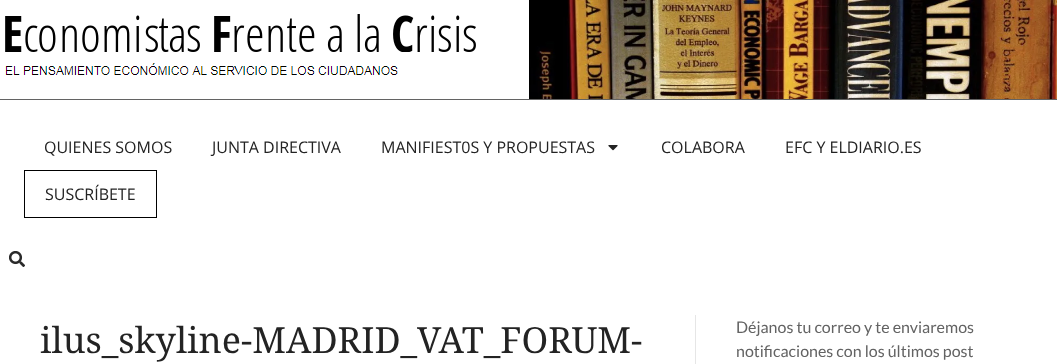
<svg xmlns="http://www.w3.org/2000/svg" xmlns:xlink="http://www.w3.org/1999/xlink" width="1057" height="364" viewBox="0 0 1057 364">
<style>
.cls-1{font:16px Open Sans;fill:#232323}
.cls-2{font:36px Noto Serif;fill:#232323}
.cls-3{font:16px Lato;fill:#636363}
</style>
<rect width="100%" height="100%" fill="#ffffff"/>
<rect fill="#636363" x="0" y="99" width="1057" height="1"/>
<image xlink:href="image0.png" x="5" y="14" width="471" height="61"/>
<image xlink:href="image1.png" x="529" y="0" width="528" height="99"/>
<image xlink:href="image2.png" x="608" y="145" width="10" height="6"/>
<rect fill="none" stroke="#000000" x="24.5" y="170.5" width="132" height="47"/>
<image xlink:href="image3.png" x="9" y="251" width="16" height="16"/>
<rect fill="#e6e6e6" x="695" y="315" width="1" height="49"/>
<text class="cls-1" x="44" y="153">QUIENES SOMOS</text>
<text class="cls-1" x="212" y="153">JUNTA DIRECTIVA</text>
<text class="cls-1" x="381" y="153">MANIFIEST0S Y PROPUESTAS</text>
<text class="cls-1" x="661" y="153">COLABORA</text>
<text class="cls-1" x="785" y="153">EFC Y ELDIARIO.ES</text>
<text class="cls-1" x="45" y="200">SUSCRÍBETE</text>
<text class="cls-2" x="40" y="353">ilus_skyline-MADRID_VAT_FORUM-</text>
<text class="cls-3"><tspan x="736" y="333">Déjanos tu correo y te enviaremos</tspan><tspan x="736" y="357">notificaciones con los últimos post</tspan></text>
</svg>
